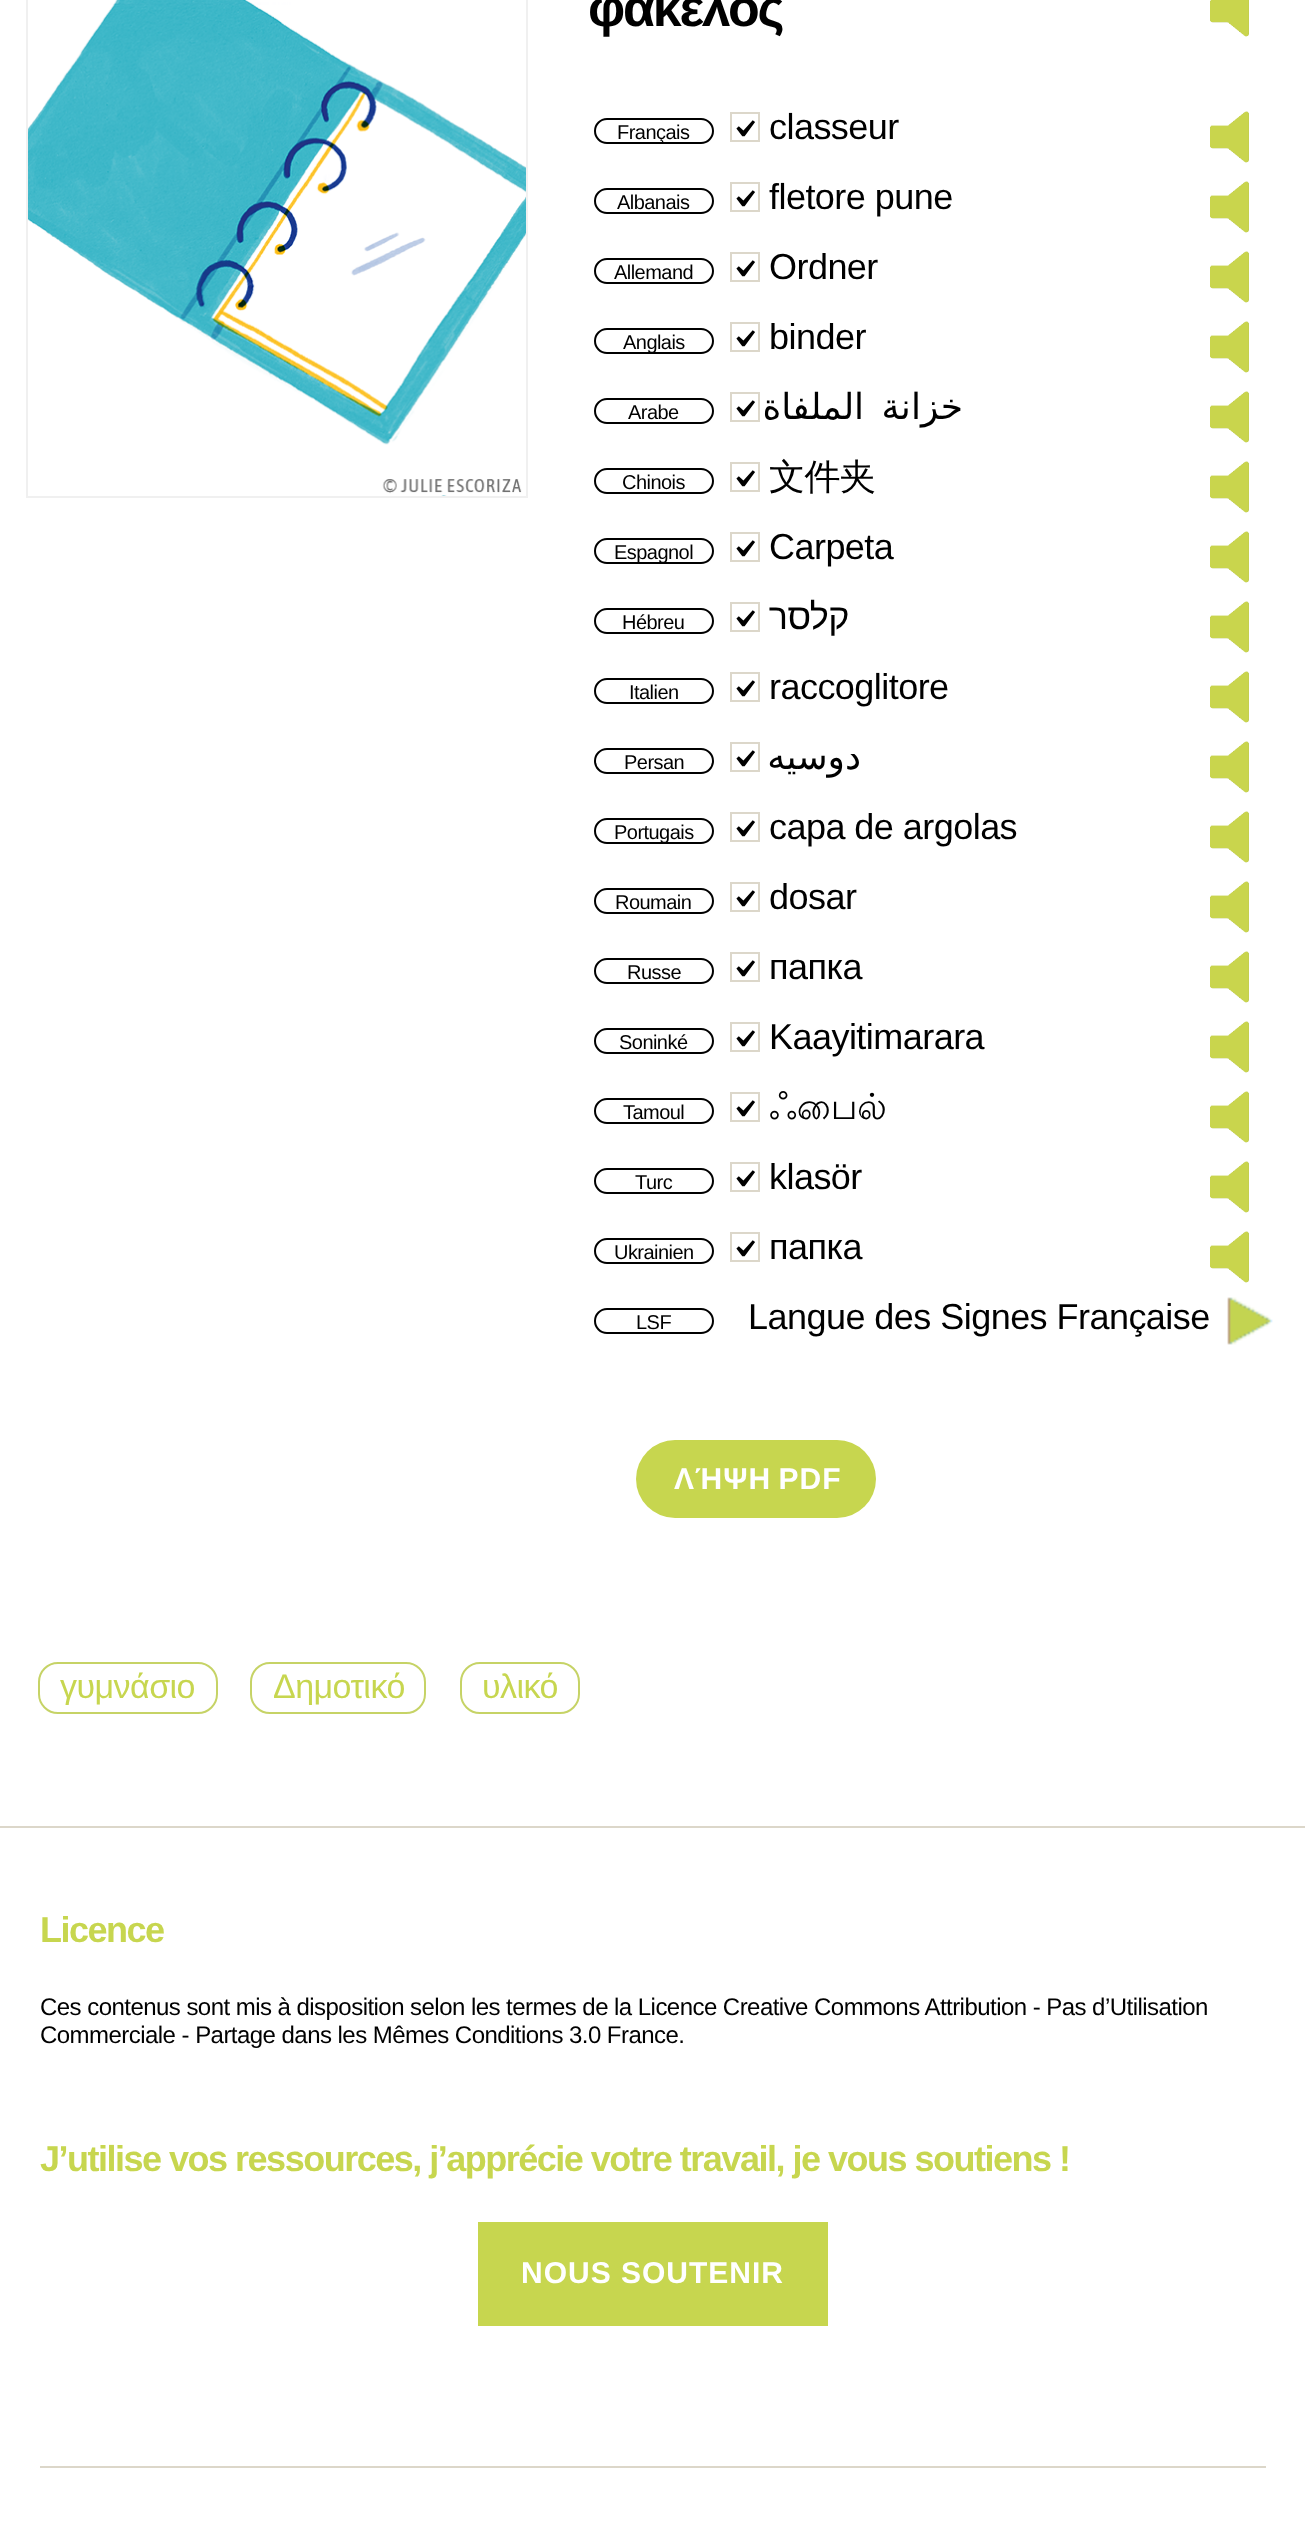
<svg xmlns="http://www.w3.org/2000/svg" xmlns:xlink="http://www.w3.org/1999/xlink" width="1305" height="2539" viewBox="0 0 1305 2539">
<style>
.cls-1{font:bold 52px Liberation Sans;letter-spacing:-2.25px;fill:#000000}
.cls-2{font:20px Liberation Sans;letter-spacing:-0.54px;fill:#000000}
.cls-3{font:36px Liberation Sans;letter-spacing:-0.54px;fill:#000000}
.cls-4{font:36px DejaVu Sans;letter-spacing:-0.54px;direction:rtl;fill:#000000}
.cls-5{font:500 36px WenQuanYi Zen Hei;letter-spacing:-0.54px;fill:#000000}
.cls-6{font:36px Liberation Sans;letter-spacing:-0.54px;direction:rtl;fill:#000000}
.cls-7{font:36px Lohit Tamil;letter-spacing:-0.54px;fill:#000000}
.cls-8{font:bold 30px Liberation Sans;letter-spacing:1px;fill:#ffffff}
.cls-9{font:34px Liberation Sans;letter-spacing:-0.54px;fill:#c7d64f}
.cls-10{font:bold 36px Liberation Sans;letter-spacing:-1.5px;fill:#c7d64f}
.cls-11{font:24px Liberation Sans;letter-spacing:-0.54px;fill:#000000}
</style>
<rect width="100%" height="100%" fill="#ffffff"/>
<rect fill="none" stroke="#f0f0f0" stroke-width="2" x="27" y="-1" width="500" height="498"/>
<image xlink:href="image0.png" x="28" y="0" width="498" height="496"/>
<image xlink:href="image1.png" x="1210" y="0" width="39" height="37"/>
<rect fill="none" stroke="#000000" stroke-width="2" x="595" y="119" width="118" height="24" rx="12"/>
<rect fill="none" stroke="#dcd7ca" stroke-width="2" x="731" y="113" width="28" height="28"/>
<image xlink:href="image2.png" x="736" y="120" width="19" height="17"/>
<image xlink:href="image3.png" x="1210" y="111" width="39" height="52"/>
<rect fill="none" stroke="#000000" stroke-width="2" x="595" y="189" width="118" height="24" rx="12"/>
<rect fill="none" stroke="#dcd7ca" stroke-width="2" x="731" y="183" width="28" height="28"/>
<image xlink:href="image4.png" x="736" y="190" width="19" height="17"/>
<image xlink:href="image3.png" x="1210" y="181" width="39" height="52"/>
<rect fill="none" stroke="#000000" stroke-width="2" x="595" y="259" width="118" height="24" rx="12"/>
<rect fill="none" stroke="#dcd7ca" stroke-width="2" x="731" y="253" width="28" height="28"/>
<image xlink:href="image2.png" x="736" y="260" width="19" height="17"/>
<image xlink:href="image3.png" x="1210" y="251" width="39" height="52"/>
<rect fill="none" stroke="#000000" stroke-width="2" x="595" y="329" width="118" height="24" rx="12"/>
<rect fill="none" stroke="#dcd7ca" stroke-width="2" x="731" y="323" width="28" height="28"/>
<image xlink:href="image2.png" x="736" y="330" width="19" height="17"/>
<image xlink:href="image3.png" x="1210" y="321" width="39" height="52"/>
<rect fill="none" stroke="#000000" stroke-width="2" x="595" y="399" width="118" height="24" rx="12"/>
<rect fill="none" stroke="#dcd7ca" stroke-width="2" x="731" y="393" width="28" height="28"/>
<image xlink:href="image2.png" x="736" y="400" width="19" height="17"/>
<image xlink:href="image3.png" x="1210" y="391" width="39" height="52"/>
<rect fill="none" stroke="#000000" stroke-width="2" x="595" y="469" width="118" height="24" rx="12"/>
<rect fill="none" stroke="#dcd7ca" stroke-width="2" x="731" y="463" width="28" height="28"/>
<image xlink:href="image2.png" x="736" y="470" width="19" height="17"/>
<image xlink:href="image3.png" x="1210" y="461" width="39" height="52"/>
<rect fill="none" stroke="#000000" stroke-width="2" x="595" y="539" width="118" height="24" rx="12"/>
<rect fill="none" stroke="#dcd7ca" stroke-width="2" x="731" y="533" width="28" height="28"/>
<image xlink:href="image2.png" x="736" y="540" width="19" height="17"/>
<image xlink:href="image3.png" x="1210" y="531" width="39" height="52"/>
<rect fill="none" stroke="#000000" stroke-width="2" x="595" y="609" width="118" height="24" rx="12"/>
<rect fill="none" stroke="#dcd7ca" stroke-width="2" x="731" y="603" width="28" height="28"/>
<image xlink:href="image2.png" x="736" y="610" width="19" height="17"/>
<image xlink:href="image3.png" x="1210" y="601" width="39" height="52"/>
<rect fill="none" stroke="#000000" stroke-width="2" x="595" y="679" width="118" height="24" rx="12"/>
<rect fill="none" stroke="#dcd7ca" stroke-width="2" x="731" y="673" width="28" height="28"/>
<image xlink:href="image2.png" x="736" y="680" width="19" height="17"/>
<image xlink:href="image3.png" x="1210" y="671" width="39" height="52"/>
<rect fill="none" stroke="#000000" stroke-width="2" x="595" y="749" width="118" height="24" rx="12"/>
<rect fill="none" stroke="#dcd7ca" stroke-width="2" x="731" y="743" width="28" height="28"/>
<image xlink:href="image2.png" x="736" y="750" width="19" height="17"/>
<image xlink:href="image3.png" x="1210" y="741" width="39" height="52"/>
<rect fill="none" stroke="#000000" stroke-width="2" x="595" y="819" width="118" height="24" rx="12"/>
<rect fill="none" stroke="#dcd7ca" stroke-width="2" x="731" y="813" width="28" height="28"/>
<image xlink:href="image2.png" x="736" y="820" width="19" height="17"/>
<image xlink:href="image3.png" x="1210" y="811" width="39" height="52"/>
<rect fill="none" stroke="#000000" stroke-width="2" x="595" y="889" width="118" height="24" rx="12"/>
<rect fill="none" stroke="#dcd7ca" stroke-width="2" x="731" y="883" width="28" height="28"/>
<image xlink:href="image2.png" x="736" y="890" width="19" height="17"/>
<image xlink:href="image3.png" x="1210" y="881" width="39" height="52"/>
<rect fill="none" stroke="#000000" stroke-width="2" x="595" y="959" width="118" height="24" rx="12"/>
<rect fill="none" stroke="#dcd7ca" stroke-width="2" x="731" y="953" width="28" height="28"/>
<image xlink:href="image5.png" x="736" y="960" width="19" height="17"/>
<image xlink:href="image3.png" x="1210" y="951" width="39" height="52"/>
<rect fill="none" stroke="#000000" stroke-width="2" x="595" y="1029" width="118" height="24" rx="12"/>
<rect fill="none" stroke="#dcd7ca" stroke-width="2" x="731" y="1023" width="28" height="28"/>
<image xlink:href="image2.png" x="736" y="1030" width="19" height="17"/>
<image xlink:href="image3.png" x="1210" y="1021" width="39" height="52"/>
<rect fill="none" stroke="#000000" stroke-width="2" x="595" y="1099" width="118" height="24" rx="12"/>
<rect fill="none" stroke="#dcd7ca" stroke-width="2" x="731" y="1093" width="28" height="28"/>
<image xlink:href="image2.png" x="736" y="1100" width="19" height="17"/>
<image xlink:href="image3.png" x="1210" y="1091" width="39" height="52"/>
<rect fill="none" stroke="#000000" stroke-width="2" x="595" y="1169" width="118" height="24" rx="12"/>
<rect fill="none" stroke="#dcd7ca" stroke-width="2" x="731" y="1163" width="28" height="28"/>
<image xlink:href="image2.png" x="736" y="1170" width="19" height="17"/>
<image xlink:href="image3.png" x="1210" y="1161" width="39" height="52"/>
<rect fill="none" stroke="#000000" stroke-width="2" x="595" y="1239" width="118" height="24" rx="12"/>
<rect fill="none" stroke="#dcd7ca" stroke-width="2" x="731" y="1233" width="28" height="28"/>
<image xlink:href="image2.png" x="736" y="1240" width="19" height="17"/>
<image xlink:href="image3.png" x="1210" y="1231" width="39" height="52"/>
<rect fill="none" stroke="#000000" stroke-width="2" x="595" y="1309" width="118" height="24" rx="12"/>
<image xlink:href="image6.png" x="1227" y="1297" width="46" height="48"/>
<rect fill="#c7d64f" x="636" y="1440" width="240" height="78" rx="39"/>
<rect fill="none" stroke="#c6d366" stroke-width="2" x="39" y="1663" width="178" height="50" rx="19"/>
<rect fill="none" stroke="#c6d366" stroke-width="2" x="251" y="1663" width="174" height="50" rx="19"/>
<rect fill="none" stroke="#c6d366" stroke-width="2" x="461" y="1663" width="118" height="50" rx="19"/>
<rect fill="#dcd7ca" x="0" y="1826" width="1305" height="2"/>
<rect fill="#dcd7ca" x="40" y="2466" width="1226" height="2"/>
<rect fill="#c7d64f" x="478" y="2222" width="350" height="104"/>
<text class="cls-1" x="588" y="26">φάκελος</text>
<text class="cls-2" x="617" y="139">Français</text>
<text class="cls-3" x="769" y="139">classeur</text>
<text class="cls-2" x="617" y="209">Albanais</text>
<text class="cls-3" x="769" y="209">fletore pune</text>
<text class="cls-2" x="614" y="279">Allemand</text>
<text class="cls-3" x="769" y="279">Ordner</text>
<text class="cls-2" x="623" y="349">Anglais</text>
<text class="cls-3" x="769" y="349">binder</text>
<text class="cls-2" x="628" y="419">Arabe</text>
<text class="cls-4" x="963" y="419" word-spacing="6">خزانة الملفاة</text>
<text class="cls-2" x="622" y="489">Chinois</text>
<text class="cls-5" x="769" y="489">文件夹</text>
<text class="cls-2" x="614" y="559">Espagnol</text>
<text class="cls-3" x="769" y="559">Carpeta</text>
<text class="cls-2" x="622" y="629">Hébreu</text>
<text class="cls-6" x="849" y="629">קלסר</text>
<text class="cls-2" x="629" y="699">Italien</text>
<text class="cls-3" x="769" y="699">raccoglitore</text>
<text class="cls-2" x="624" y="769">Persan</text>
<text class="cls-4" x="861" y="769">دوسیه</text>
<text class="cls-2" x="614" y="839">Portugais</text>
<text class="cls-3" x="769" y="839">capa de argolas</text>
<text class="cls-2" x="615" y="909">Roumain</text>
<text class="cls-3" x="769" y="909">dosar</text>
<text class="cls-2" x="627" y="979">Russe</text>
<text class="cls-3" x="769" y="979">папка</text>
<text class="cls-2" x="619" y="1049">Soninké</text>
<text class="cls-3" x="769" y="1049">Kaayitimarara</text>
<text class="cls-2" x="623" y="1119">Tamoul</text>
<text class="cls-7" x="769" y="1119">ஃபைல்</text>
<text class="cls-2" x="635" y="1189">Turc</text>
<text class="cls-3" x="769" y="1189">klasör</text>
<text class="cls-2" x="614" y="1259">Ukrainien</text>
<text class="cls-3" x="769" y="1259">папка</text>
<text class="cls-2" x="636" y="1329">LSF</text>
<text class="cls-3" x="748" y="1329">Langue des Signes Française</text>
<text class="cls-8" x="674" y="1489" word-spacing="-2">ΛΉΨΗ PDF</text>
<text class="cls-9" x="60" y="1698">γυμνάσιο</text>
<text class="cls-9" x="273" y="1698">Δημοτικό</text>
<text class="cls-9" x="482" y="1698">υλικό</text>
<text class="cls-10" x="40" y="1942">Licence</text>
<text class="cls-11"><tspan x="40" y="2015">Ces contenus sont mis à disposition selon les termes de la Licence Creative Commons Attribution - Pas d’Utilisation</tspan><tspan x="40" y="2043">Commerciale - Partage dans les Mêmes Conditions 3.0 France.</tspan></text>
<text class="cls-10" x="40" y="2171">J’utilise vos ressources, j’apprécie votre travail, je vous soutiens !</text>
<text class="cls-8" x="521" y="2283">NOUS SOUTENIR</text>
</svg>
